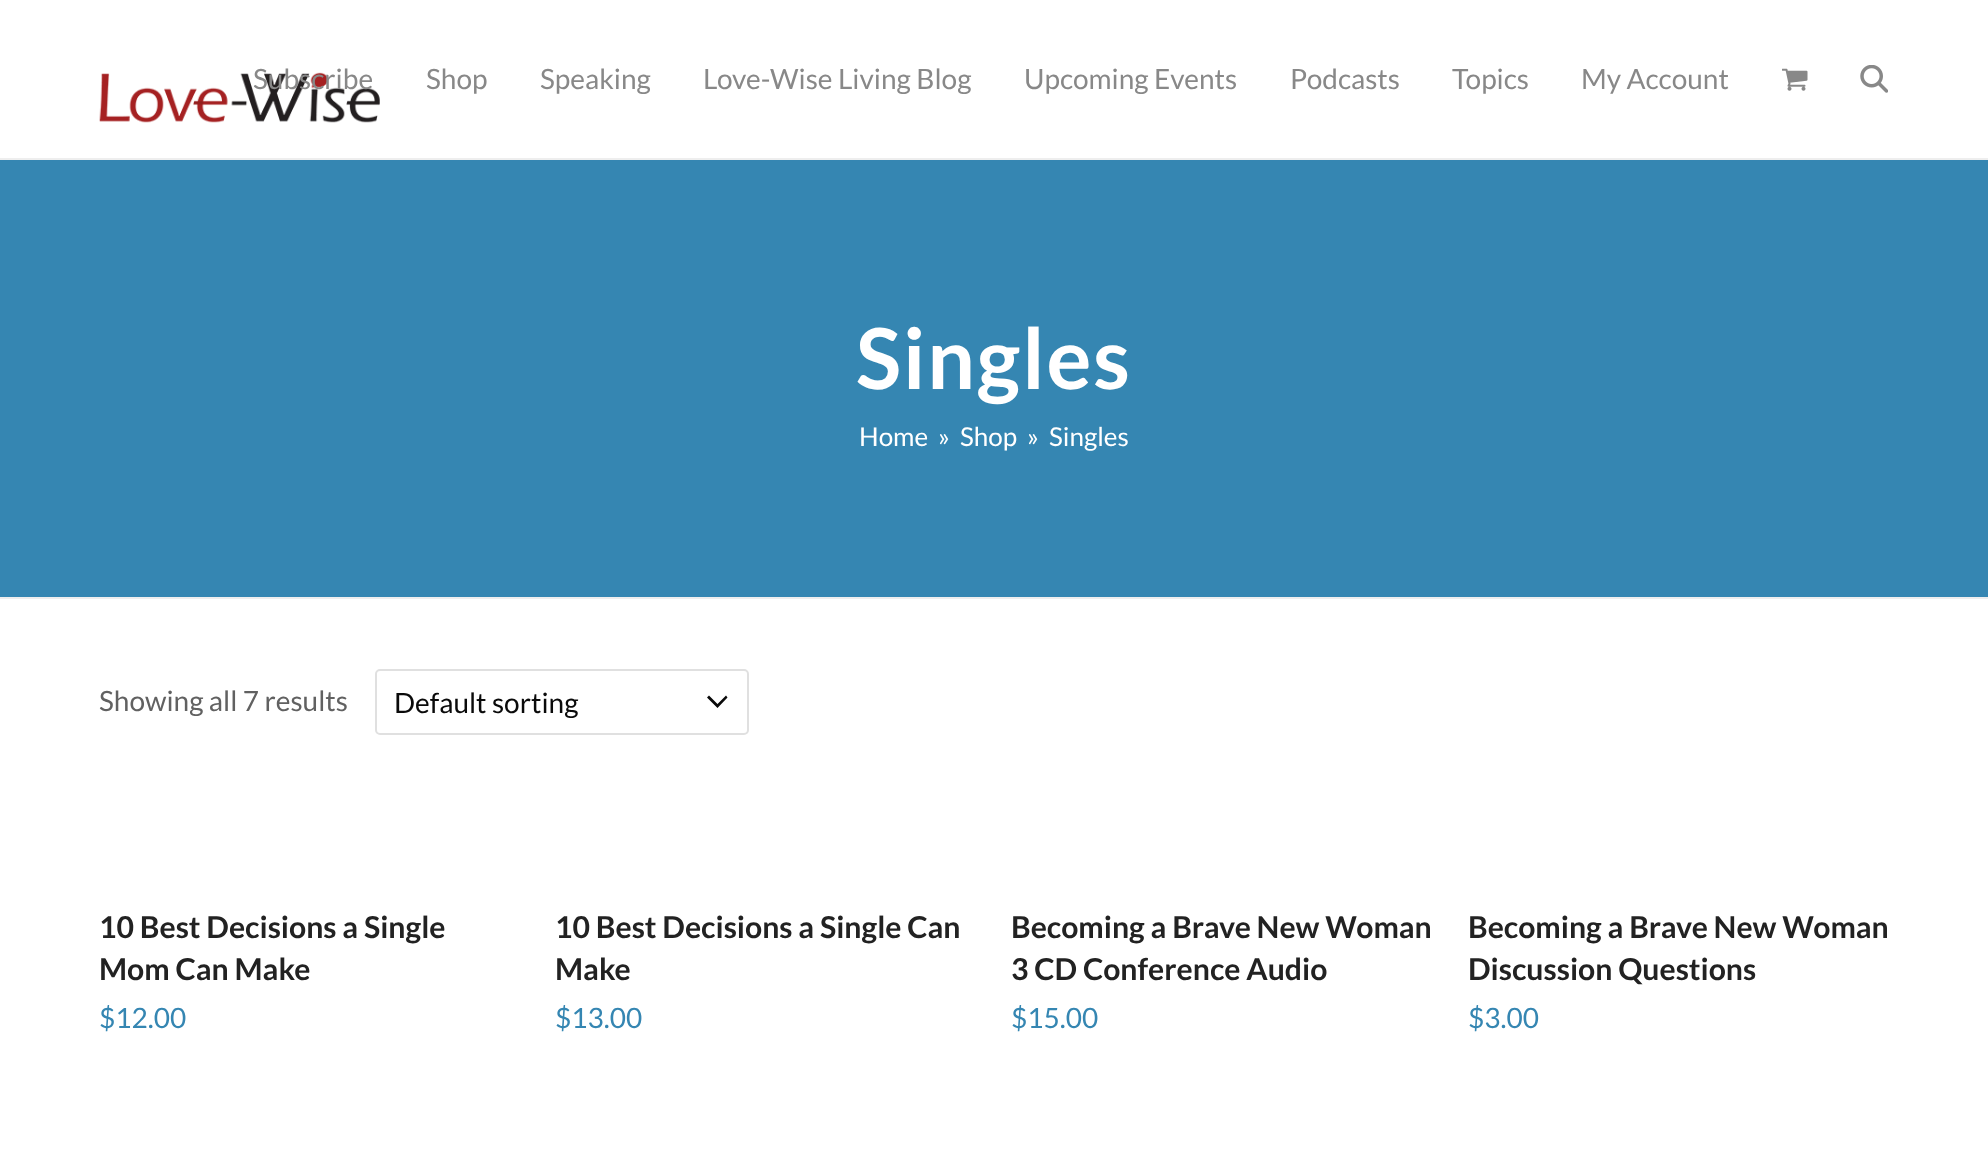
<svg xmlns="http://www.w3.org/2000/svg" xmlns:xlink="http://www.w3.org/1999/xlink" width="1988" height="1157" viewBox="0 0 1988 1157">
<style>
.cls-1{font:28px Lato;fill:#888888}
.cls-2{font:bold 84px Lato;letter-spacing:1.75px;fill:#ffffff}
.cls-3{font:26px Lato;fill:#ffffff}
.cls-4{font:28px Lato;fill:#616161}
.cls-5{font:28px Lato;fill:#0a0a0a}
.cls-6{font:bold 30.2px Lato;fill:#222222}
.cls-7{font:28px Lato;fill:#3586b2}
</style>
<rect width="100%" height="100%" fill="#ffffff"/>
<image xlink:href="image0.png" x="99" y="72" width="281" height="51"/>
<image xlink:href="image1.png" x="1782" y="68" width="26" height="23"/>
<image xlink:href="image2.png" x="1860" y="65" width="28" height="28"/>
<rect fill="#3586b2" x="0" y="160" width="1988" height="437"/>
<rect fill="#eeeeee" x="0" y="158" width="1988" height="2"/>
<rect fill="#eeeeee" x="0" y="597" width="1988" height="2"/>
<rect fill="none" stroke="#e0e0e0" stroke-width="2" x="376" y="670" width="372" height="64" rx="4"/>
<path fill="#0a0a0a" d="M709 695.5L707 697.5L717.5 708L727.5 697.5L726 695.5L717.5 704Z"/>
<text class="cls-1" x="253" y="89">Subscribe</text>
<text class="cls-1" x="426" y="89">Shop</text>
<text class="cls-1" x="540" y="89">Speaking</text>
<text class="cls-1" x="703" y="89">Love-Wise Living Blog</text>
<text class="cls-1" x="1024" y="89">Upcoming Events</text>
<text class="cls-1" x="1290" y="89">Podcasts</text>
<text class="cls-1" x="1452" y="89">Topics</text>
<text class="cls-1" x="1581" y="89">My Account</text>
<text class="cls-2" x="856" y="389">Singles</text>
<text class="cls-3" x="859" y="446">Home</text>
<text class="cls-3" x="938" y="446">»</text>
<text class="cls-3" x="960" y="446">Shop</text>
<text class="cls-3" x="1027" y="446">»</text>
<text class="cls-3" x="1049" y="446">Singles</text>
<text class="cls-4" x="99" y="711">Showing all 7 results</text>
<text class="cls-5" x="394" y="713">Default sorting</text>
<text class="cls-6"><tspan x="99" y="938">10 Best Decisions a Single</tspan><tspan x="99" y="980">Mom Can Make</tspan></text>
<text class="cls-7" x="99" y="1028">$12.00</text>
<text class="cls-6"><tspan x="555" y="938">10 Best Decisions a Single Can</tspan><tspan x="555" y="980">Make</tspan></text>
<text class="cls-7" x="555" y="1028">$13.00</text>
<text class="cls-6"><tspan x="1011" y="938">Becoming a Brave New Woman</tspan><tspan x="1011" y="980">3 CD Conference Audio</tspan></text>
<text class="cls-7" x="1011" y="1028">$15.00</text>
<text class="cls-6"><tspan x="1468" y="938">Becoming a Brave New Woman</tspan><tspan x="1468" y="980">Discussion Questions</tspan></text>
<text class="cls-7" x="1468" y="1028">$3.00</text>
</svg>
